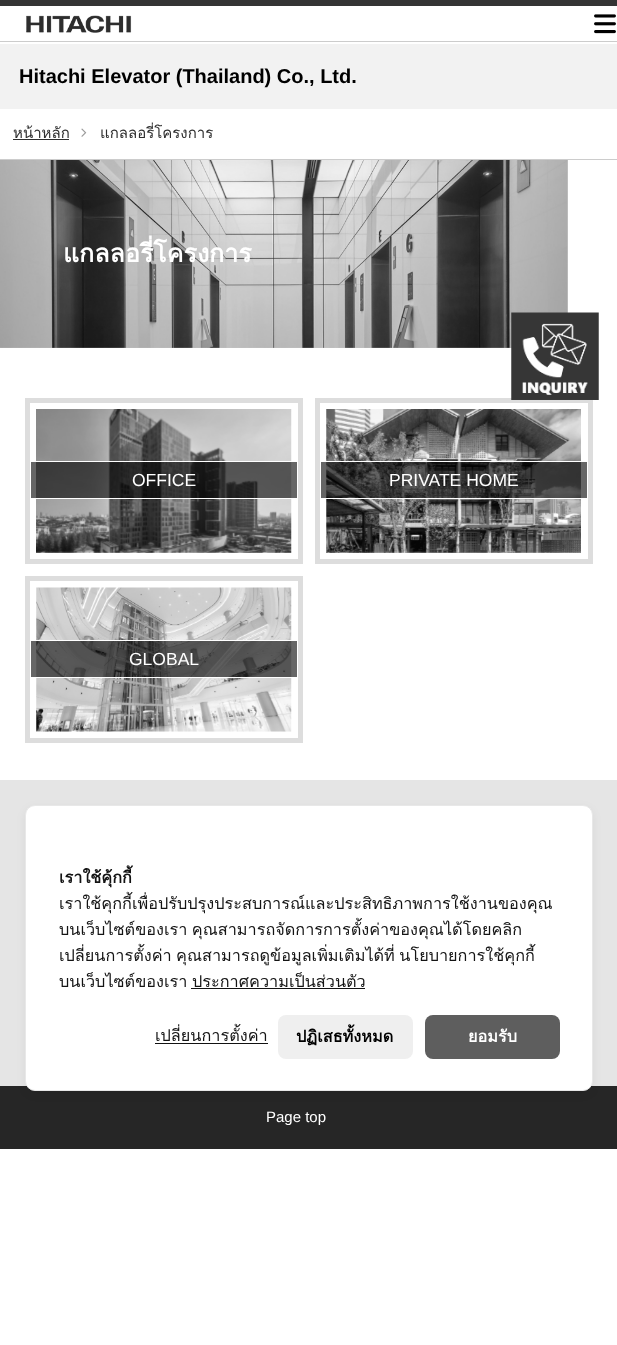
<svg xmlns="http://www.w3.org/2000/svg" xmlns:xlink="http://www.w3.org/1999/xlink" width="617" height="1345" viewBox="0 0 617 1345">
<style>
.cls-1{font:bold 20px Liberation Sans;fill:#000000}
.cls-2{font:15px Loma;fill:#2e2e2e}
.cls-3{font:bold 25px Loma;fill:#ffffff}
.cls-4{font:17.5px Liberation Sans;fill:#ffffff}
.cls-5{font:bold 16.25px Loma;fill:#141414}
.cls-6{font:16.25px Loma;fill:#141414}
.cls-7{font:bold 16.25px Loma;fill:#000000}
.cls-8{font:bold 16.25px Loma;fill:#ffffff}
.cls-9{font:15px Liberation Sans;fill:#ffffff}
</style>
<rect width="100%" height="100%" fill="#ffffff"/>
<rect fill="#343434" x="0" y="0" width="617" height="6"/>
<image xlink:href="image0.png" x="26" y="15" width="106" height="18"/>
<image xlink:href="image1.png" x="594" y="14" width="22" height="20"/>
<rect fill="#cccccc" x="0" y="41" width="617" height="1"/>
<rect fill="#f2f2f2" x="0" y="44" width="617" height="65"/>
<rect fill="#cccccc" x="0" y="159" width="617" height="1"/>
<rect fill="#2e2e2e" x="13" y="139" width="56" height="1"/>
<image xlink:href="image2.png" x="81" y="128" width="6" height="9"/>
<rect fill="#cccccc" x="0" y="160" width="568" height="188"/>
<image xlink:href="image3.png" x="0" y="160" width="568" height="188"/>
<rect fill="none" stroke="#dddddd" stroke-width="5" x="27.5" y="400.5" width="273" height="161"/>
<image xlink:href="image4.png" x="36" y="409" width="256" height="144"/>
<rect fill="#000000" fill-opacity="0.6" stroke="#ffffff" x="30.5" y="461.5" width="267" height="37"/>
<rect fill="none" stroke="#dddddd" stroke-width="5" x="317.5" y="400.5" width="273" height="161"/>
<image xlink:href="image5.png" x="326" y="409" width="255" height="144"/>
<rect fill="#000000" fill-opacity="0.6" stroke="#ffffff" x="320.5" y="461.5" width="267" height="37"/>
<rect fill="none" stroke="#dddddd" stroke-width="5" x="27.5" y="578.5" width="273" height="162"/>
<image xlink:href="image6.png" x="36" y="587" width="256" height="145"/>
<rect fill="#000000" fill-opacity="0.6" stroke="#ffffff" x="30.5" y="640.5" width="267" height="37"/>
<image xlink:href="image7.png" x="511" y="312" width="88" height="88"/>
<rect fill="#e5e5e5" x="0" y="780" width="617" height="306"/>
<rect fill="#262626" x="0" y="1086" width="617" height="63"/>
<rect fill="#000000" fill-opacity="0.05" filter="blur(5px)" x="25" y="808" width="568" height="286" rx="10"/>
<rect fill="#ffffff" stroke="#e8e8e8" x="25.5" y="805.5" width="567" height="285" rx="9.5"/>
<rect fill="#121212" x="191" y="988" width="174" height="1"/>
<rect fill="#121212" x="155" y="1043" width="113" height="1"/>
<rect fill="#efefef" x="278" y="1015" width="135" height="44" rx="8"/>
<rect fill="#5e5e5e" x="425" y="1015" width="135" height="44" rx="8"/>
<text class="cls-1" x="19" y="83">Hitachi Elevator (Thailand) Co., Ltd.</text>
<text class="cls-2" x="13" y="138">หน้าหลัก</text>
<text class="cls-2" x="100" y="138">แกลลอรี่โครงการ</text>
<text class="cls-3" x="63" y="262">แกลลอรี่โครงการ</text>
<text class="cls-4" x="132" y="486">OFFICE</text>
<text class="cls-4" x="389" y="486">PRIVATE HOME</text>
<text class="cls-4" x="129" y="665">GLOBAL</text>
<text class="cls-5" x="59" y="883">เราใช้คุ้กกี้</text>
<text class="cls-6"><tspan x="59" y="909">เราใช้คุกกี้เพื่อปรับปรุงประสบการณ์และประสิทธิภาพการใช้งานของคุณ</tspan><tspan x="59" y="935" word-spacing="-1">บนเว็บไซต์ของเรา คุณสามารถจัดการการตั้งค่าของคุณได้โดยคลิก</tspan><tspan x="59" y="961" word-spacing="-1">เปลี่ยนการตั้งค่า คุณสามารถดูข้อมูลเพิ่มเติมได้ที่ นโยบายการใช้คุกกี้</tspan><tspan x="59" y="987">บนเว็บไซต์ของเรา</tspan></text>
<text class="cls-6" x="192" y="987">ประกาศความเป็นส่วนตัว</text>
<text class="cls-6" x="155" y="1041">เปลี่ยนการตั้งค่า</text>
<text class="cls-7" x="296" y="1042">ปฏิเสธทั้งหมด</text>
<text class="cls-8" x="468" y="1042">ยอมรับ</text>
<text class="cls-9" x="266" y="1122">Page top</text>
</svg>
